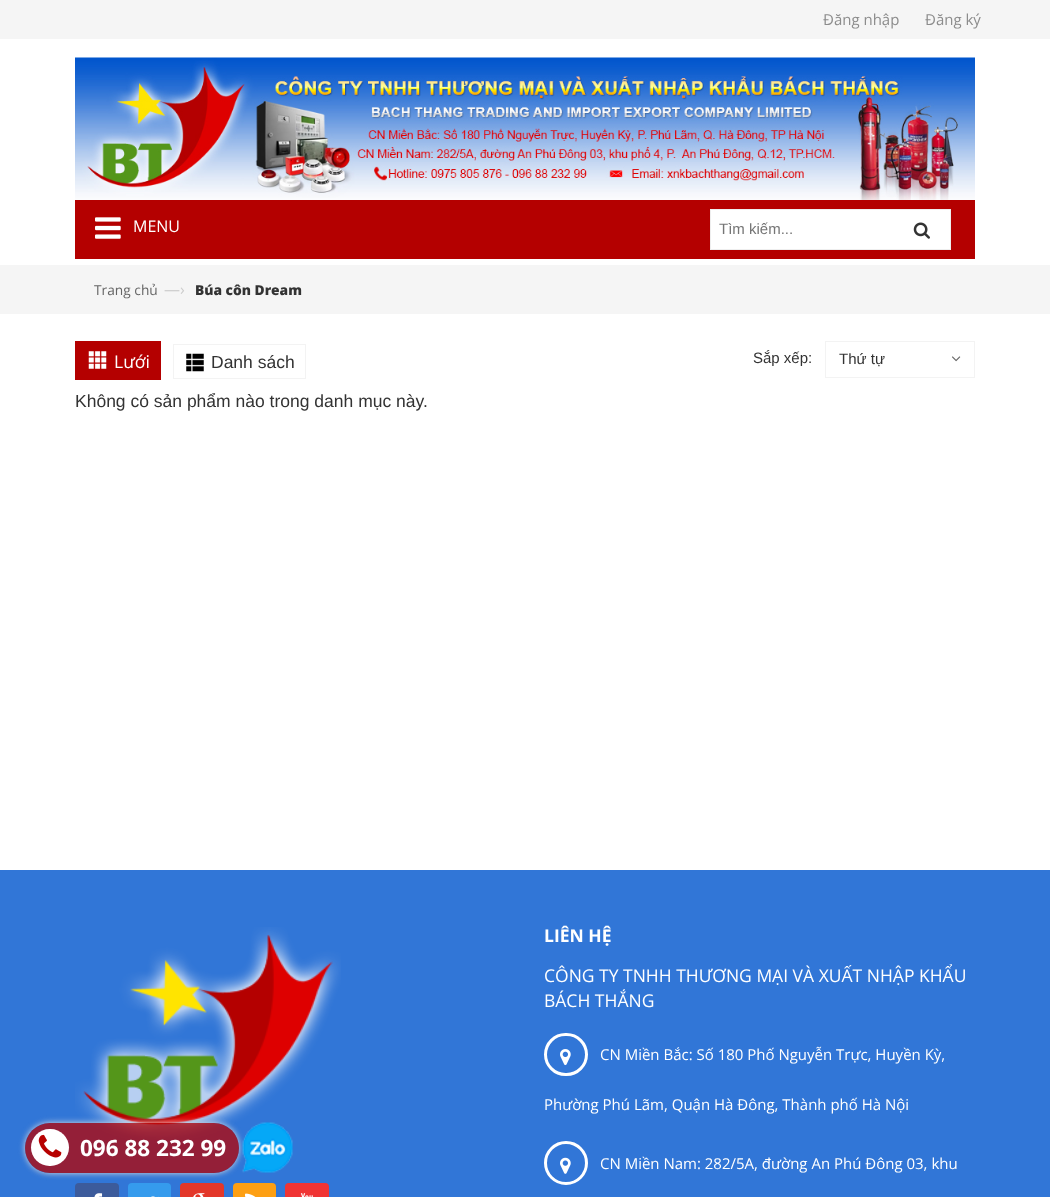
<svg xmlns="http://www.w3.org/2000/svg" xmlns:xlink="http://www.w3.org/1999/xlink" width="1050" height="1197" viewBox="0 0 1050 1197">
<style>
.cls-1{font:15px Open Sans;fill:#8c8c8c}
.cls-2{font:16px Open Sans;fill:#ffffff}
.cls-3{font:15px Liberation Sans;fill:#757575}
.cls-4{font:13.75px Open Sans;fill:#666666}
.cls-5{font:16px Open Sans;fill:#cccccc}
.cls-6{font:800 13.75px Open Sans;fill:#333333}
.cls-7{font:17.5px Open Sans;fill:#ffffff}
.cls-8{font:17.5px Liberation Sans;fill:#333333}
.cls-9{font:15px Liberation Sans;fill:#333333}
.cls-10{font:bold 22.5px Open Sans;fill:#ffffff}
.cls-11{font:bold 17.5px Open Sans;fill:#ffffff}
.cls-12{font:15px Open Sans;fill:#ffffff}
</style>
<defs>
<clipPath id="clip1"><path d="M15 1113H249V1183H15ZM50 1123H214C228 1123 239 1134 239 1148C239 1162 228 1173 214 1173H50C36 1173 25 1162 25 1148C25 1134 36 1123 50 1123Z" clip-rule="evenodd"/></clipPath>
</defs>
<rect width="100%" height="100%" fill="#ffffff"/>
<rect fill="#f5f5f5" x="0" y="0" width="1050" height="39"/>
<image xlink:href="image0.png" x="75" y="57" width="900" height="143"/>
<rect fill="#b40000" x="75" y="200" width="900" height="59"/>
<image xlink:href="image1.png" x="95" y="217" width="26" height="22"/>
<rect fill="#ffffff" x="711" y="210" width="188" height="39"/>
<rect fill="none" stroke="#eeeeee" x="710.5" y="209.5" width="193" height="40"/>
<rect fill="#ffffff" x="899" y="210" width="51" height="39"/>
<rect fill="#eeeeee" x="899" y="209" width="52" height="1"/>
<rect fill="#eeeeee" x="950" y="209" width="1" height="41"/>
<rect fill="#eeeeee" x="899" y="249" width="52" height="1"/>
<image xlink:href="image2.png" x="913" y="222" width="17" height="17"/>
<rect fill="#f5f5f5" x="0" y="265" width="1050" height="49"/>
<rect fill="#b40000" x="75" y="341" width="86" height="39"/>
<image xlink:href="image3.png" x="88" y="351" width="19" height="18"/>
<image xlink:href="image4.png" x="186" y="353" width="18" height="19"/>
<rect fill="none" stroke="#f3f3f3" x="173.5" y="344.5" width="132" height="34"/>
<rect fill="none" stroke="#f3f3f3" x="825.5" y="341.5" width="149" height="36"/>
<image xlink:href="image5.png" x="952" y="356" width="9" height="6"/>
<rect fill="#3176d7" x="0" y="870" width="1050" height="327"/>
<image xlink:href="image8.png" x="75" y="927" width="266" height="213"/>
<g clip-path="url(#clip1)">
<rect fill="#dddddd" filter="blur(3px)" x="25" y="1123" width="214" height="50" rx="25"/>
</g>
<rect fill="#b70100" fill-opacity="0.74" x="25" y="1123" width="214" height="50" rx="25"/>
<rect fill="#ffffff" x="31" y="1129" width="38" height="37" rx="18.5"/>
<image xlink:href="image6.png" x="38" y="1134" width="24" height="24"/>
<image xlink:href="image7.png" x="242" y="1122" width="51" height="51"/>
<rect fill="#3c5b9b" x="75" y="1183" width="44" height="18" rx="4"/>
<image xlink:href="image9.png" x="94" y="1193" width="9" height="4"/>
<rect fill="#359bed" x="128" y="1183" width="43" height="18" rx="4"/>
<image xlink:href="image10.png" x="151" y="1196" width="8" height="1"/>
<rect fill="#e33729" x="180" y="1183" width="44" height="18" rx="4"/>
<image xlink:href="image11.png" x="193" y="1193" width="12" height="4"/>
<rect fill="#fd9f13" x="233" y="1183" width="43" height="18" rx="4"/>
<image xlink:href="image12.png" x="245" y="1193" width="11" height="4"/>
<rect fill="#f03434" x="285" y="1183" width="44" height="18" rx="4"/>
<image xlink:href="image13.png" x="300" y="1193" width="13" height="4"/>
<rect fill="none" stroke="#ffffff" stroke-width="3" x="545.5" y="1034.5" width="41" height="40" rx="20"/>
<image xlink:href="image14.png" x="560" y="1049" width="11" height="17"/>
<circle fill="none" stroke="#ffffff" stroke-width="3" cx="566" cy="1163" r="20.5"/>
<image xlink:href="image15.png" x="560" y="1157" width="11" height="17"/>
<text class="cls-1" x="823" y="25">Đăng nhập</text>
<text class="cls-1" x="925" y="25">Đăng ký</text>
<text class="cls-2" x="133" y="232">MENU</text>
<text class="cls-3" x="719" y="234">Tìm kiếm...</text>
<text class="cls-4" x="94" y="295">Trang chủ</text>
<text class="cls-5" x="164" y="295">—›</text>
<text class="cls-6" x="195" y="295">Búa côn Dream</text>
<text class="cls-7" x="114" y="368">Lưới</text>
<text class="cls-8" x="211" y="368">Danh sách</text>
<text class="cls-9" x="753" y="363">Sắp xếp:</text>
<text class="cls-9" x="839" y="364">Thứ tự</text>
<text class="cls-8" x="75" y="407">Không có sản phẩm nào trong danh mục này.</text>
<text class="cls-10" x="80" y="1156">096 88 232 99</text>
<text class="cls-11" x="544" y="942">LIÊN HỆ</text>
<text class="cls-7"><tspan x="544" y="982">CÔNG TY TNHH THƯƠNG MẠI VÀ XUẤT NHẬP KHẨU</tspan><tspan x="544" y="1007">BÁCH THẮNG</tspan></text>
<text class="cls-12" x="600" y="1060">CN Miền Bắc: Số 180 Phố Nguyễn Trực, Huyền Kỳ,</text>
<text class="cls-12" x="544" y="1110">Phường Phú Lãm, Quận Hà Đông, Thành phố Hà Nội</text>
<text class="cls-12" x="600" y="1169">CN Miền Nam: 282/5A, đường An Phú Đông 03, khu</text>
</svg>
